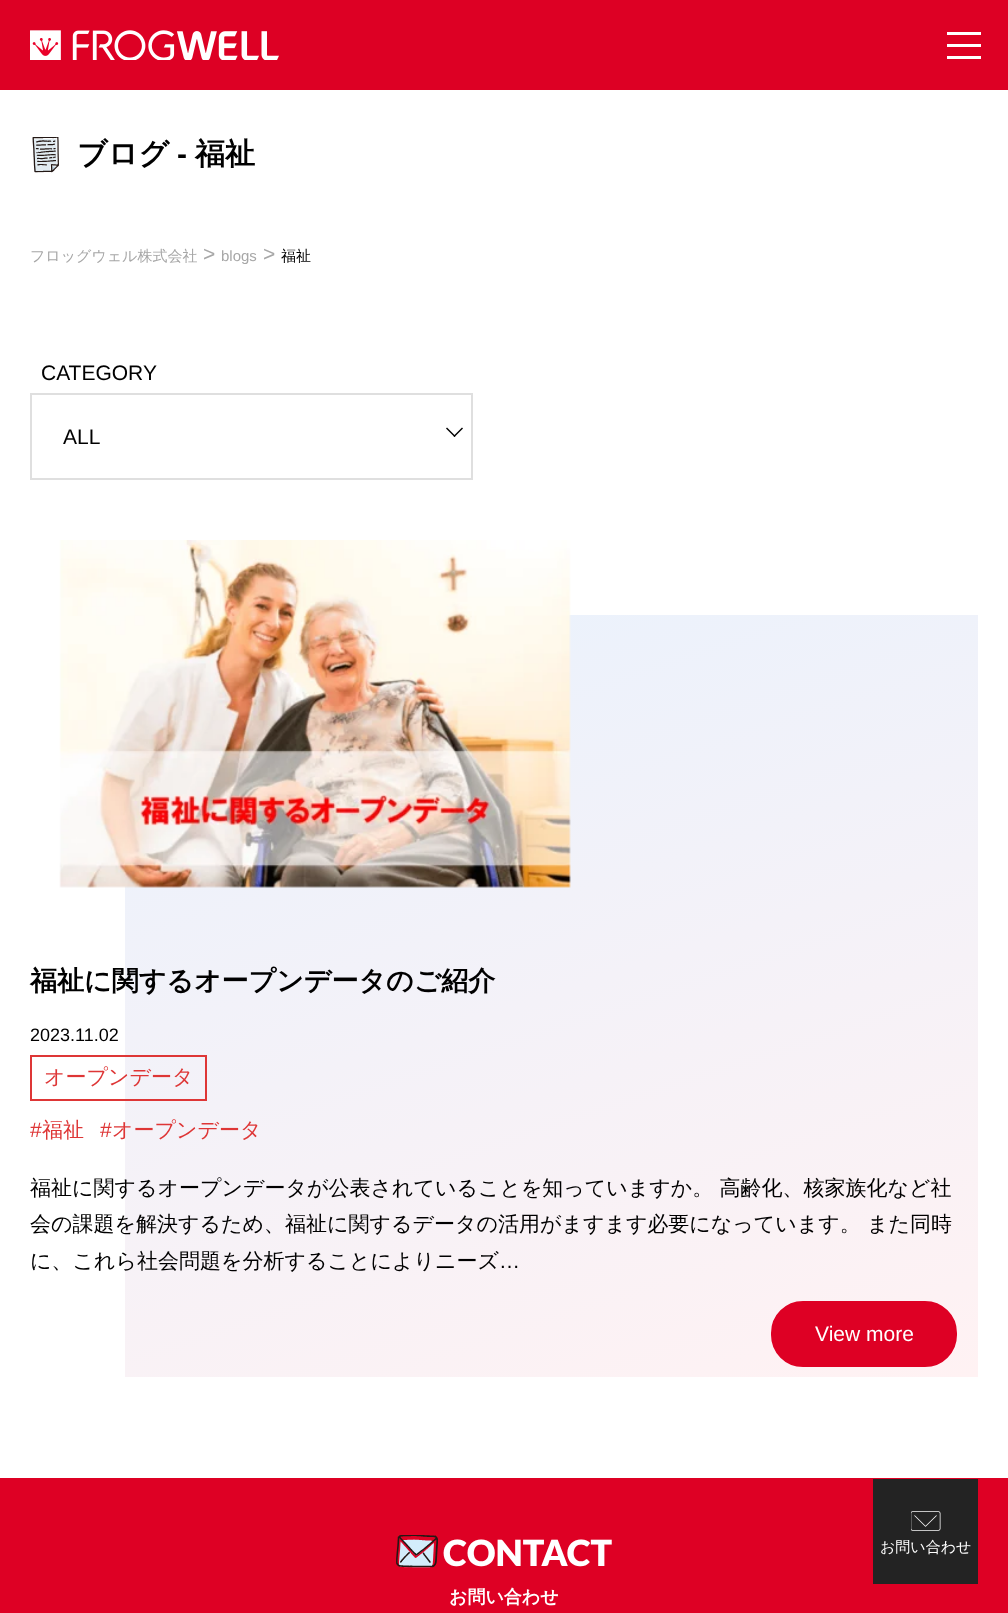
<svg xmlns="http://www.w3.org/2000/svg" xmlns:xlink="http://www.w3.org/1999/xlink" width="1008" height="1613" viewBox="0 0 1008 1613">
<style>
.cls-1{font:bold 30px WenQuanYi Zen Hei;fill:#000000}
.cls-2{font:bold 30px Liberation Sans;fill:#000000}
.cls-3{font:500 15px WenQuanYi Zen Hei;fill:#a7a7a7}
.cls-4{font:21px Liberation Sans;fill:#a7a7a7}
.cls-5{font:15px Liberation Sans;fill:#a7a7a7}
.cls-6{font:500 15px WenQuanYi Zen Hei;fill:#000000}
.cls-7{font:21px Liberation Sans;fill:#000000}
.cls-8{font:bold 27px WenQuanYi Zen Hei;fill:#000000}
.cls-9{font:18px Liberation Sans;fill:#000000}
.cls-10{font:500 21px WenQuanYi Zen Hei;fill:#de3636}
.cls-11{font:21px Liberation Sans;fill:#de3636}
.cls-12{font:500 21px WenQuanYi Zen Hei;fill:#000000}
.cls-13{font:21px Liberation Sans;fill:#ffffff}
.cls-14{font:900 36px Lato;fill:#ffffff}
.cls-15{font:bold 18px WenQuanYi Zen Hei;fill:#ffffff}
.cls-16{font:500 15px WenQuanYi Zen Hei;fill:#ffffff}
</style>
<defs>
<linearGradient id="g1" gradientUnits="userSpaceOnUse" x1="396" y1="526" x2="706" y2="1466"><stop offset="0" stop-color="#e9f2fd"/><stop offset="1" stop-color="#fff2f3"/></linearGradient>
</defs>
<rect width="100%" height="100%" fill="#ffffff"/>
<rect fill="#dd0024" x="0" y="0" width="1008" height="90"/>
<image xlink:href="image0.png" x="30" y="30" width="249" height="30"/>
<rect fill="#ffffff" x="947" y="44" width="34" height="3"/>
<rect fill="#ffffff" x="947" y="32" width="34" height="3"/>
<rect fill="#ffffff" x="947" y="56" width="34" height="3"/>
<image xlink:href="image1.png" x="32" y="137" width="27" height="36"/>
<rect fill="none" stroke="#dfdfdf" stroke-width="2" x="31" y="394" width="441" height="85"/>
<path fill="#000000" d="M462 427.5L463 428.5L454.5 437L453.5 436Z"/>
<path fill="#000000" d="M447 427.5L455.5 436L454.5 437L446 428.5Z"/>
<rect fill="url(#g1)" x="125" y="615" width="853" height="762"/>
<image xlink:href="image2.png" x="59" y="540" width="512" height="348"/>
<rect fill="none" stroke="#de3636" stroke-width="2" x="31" y="1056" width="175" height="44"/>
<rect fill="#de0024" stroke="#de0024" stroke-width="2" x="772" y="1302" width="184" height="64" rx="31"/>
<rect fill="#de0024" x="0" y="1478" width="1008" height="135"/>
<image xlink:href="image3.png" x="396" y="1535" width="42" height="33"/>
<rect fill="#232323" x="873" y="1479" width="105" height="105"/>
<image xlink:href="image4.png" x="911" y="1511" width="30" height="20"/>
<text class="cls-1" x="77" y="164">ブログ</text>
<text class="cls-2" x="177" y="164">-</text>
<text class="cls-1" x="195" y="164">福祉</text>
<text class="cls-3" x="30" y="261">フロッグウェル株式会社</text>
<text class="cls-4" x="203" y="261">&gt;</text>
<text class="cls-5" x="221" y="261">blogs</text>
<text class="cls-4" x="263" y="261">&gt;</text>
<text class="cls-6" x="281" y="261">福祉</text>
<text class="cls-7" x="41" y="380">CATEGORY</text>
<text class="cls-7" x="63" y="444">ALL</text>
<text class="cls-8" x="30" y="990">福祉に関するオープンデータのご紹介</text>
<text class="cls-9" x="30" y="1041">2023.11.02</text>
<text class="cls-10" x="44" y="1084">オープンデータ</text>
<text class="cls-11" x="30" y="1137">#</text>
<text class="cls-10" x="42" y="1137">福祉</text>
<text class="cls-11" x="100" y="1137">#</text>
<text class="cls-10" x="112" y="1137">オープンデータ</text>
<text class="cls-12"><tspan x="30" y="1195">福祉に関するオープンデータが公表されていることを知っていますか。 高齢化、核家族化など社</tspan><tspan x="30" y="1231">会の課題を解決するため、福祉に関するデータの活用がますます必要になっています。 また同時</tspan><tspan x="30" y="1268">に、これら社会問題を分析することによりニーズ</tspan></text>
<text class="cls-7" x="499" y="1268">…</text>
<text class="cls-13" x="815" y="1341">View more</text>
<text class="cls-14" x="443" y="1566">CONTACT</text>
<text class="cls-15" x="449" y="1603">お問い合わせ</text>
<text class="cls-16" x="880" y="1552">お問い合わせ</text>
</svg>
